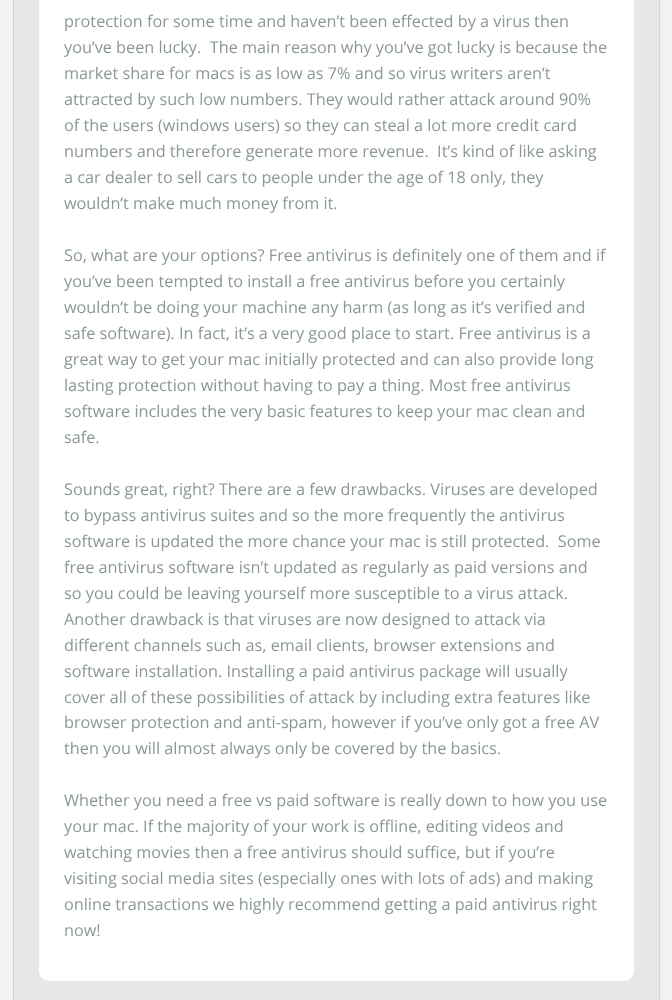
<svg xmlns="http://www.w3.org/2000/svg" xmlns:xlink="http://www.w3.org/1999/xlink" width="672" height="1000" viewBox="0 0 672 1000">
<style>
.cls-1{font:16.25px Open Sans;fill:#8b9798}
</style>
<rect width="100%" height="100%" fill="#f1f2f2"/>
<rect fill="#e6e7e8" stroke="#d1d3d4" x="13.5" y="-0.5" width="646" height="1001"/>
<rect fill="#ffffff" x="39" y="-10" width="595" height="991" rx="10"/>
<text class="cls-1" xml:space="preserve"><tspan x="64" y="27">protection for some time and haven’t been effected by a virus then</tspan><tspan x="64" y="53">you’ve been lucky.  The main reason why you’ve got lucky is because the</tspan><tspan x="64" y="79">market share for macs is as low as 7% and so virus writers aren’t</tspan><tspan x="64" y="105">attracted by such low numbers. They would rather attack around 90%</tspan><tspan x="64" y="131">of the users (windows users) so they can steal a lot more credit card</tspan><tspan x="64" y="157">numbers and therefore generate more revenue.  It’s kind of like asking</tspan><tspan x="64" y="183">a car dealer to sell cars to people under the age of 18 only, they</tspan><tspan x="64" y="209">wouldn’t make much money from it.</tspan></text>
<text class="cls-1"><tspan x="64" y="261">So, what are your options? Free antivirus is definitely one of them and if</tspan><tspan x="64" y="287">you’ve been tempted to install a free antivirus before you certainly</tspan><tspan x="64" y="313">wouldn’t be doing your machine any harm (as long as it’s verified and</tspan><tspan x="64" y="339">safe software). In fact, it’s a very good place to start. Free antivirus is a</tspan><tspan x="64" y="365">great way to get your mac initially protected and can also provide long</tspan><tspan x="64" y="391">lasting protection without having to pay a thing. Most free antivirus</tspan><tspan x="64" y="417">software includes the very basic features to keep your mac clean and</tspan><tspan x="64" y="443">safe.</tspan></text>
<text class="cls-1" xml:space="preserve"><tspan x="64" y="495">Sounds great, right? There are a few drawbacks. Viruses are developed</tspan><tspan x="64" y="521">to bypass antivirus suites and so the more frequently the antivirus</tspan><tspan x="64" y="547">software is updated the more chance your mac is still protected.  Some</tspan><tspan x="64" y="573">free antivirus software isn’t updated as regularly as paid versions and</tspan><tspan x="64" y="599">so you could be leaving yourself more susceptible to a virus attack.</tspan><tspan x="64" y="625">Another drawback is that viruses are now designed to attack via</tspan><tspan x="64" y="651">different channels such as, email clients, browser extensions and</tspan><tspan x="64" y="677">software installation. Installing a paid antivirus package will usually</tspan><tspan x="64" y="703">cover all of these possibilities of attack by including extra features like</tspan><tspan x="64" y="728">browser protection and anti-spam, however if you’ve only got a free AV</tspan><tspan x="64" y="754">then you will almost always only be covered by the basics.</tspan></text>
<text class="cls-1"><tspan x="64" y="806">Whether you need a free vs paid software is really down to how you use</tspan><tspan x="64" y="832">your mac. If the majority of your work is offline, editing videos and</tspan><tspan x="64" y="858">watching movies then a free antivirus should suffice, but if you’re</tspan><tspan x="64" y="884">visiting social media sites (especially ones with lots of ads) and making</tspan><tspan x="64" y="910">online transactions we highly recommend getting a paid antivirus right</tspan><tspan x="64" y="936">now!</tspan></text>
</svg>
